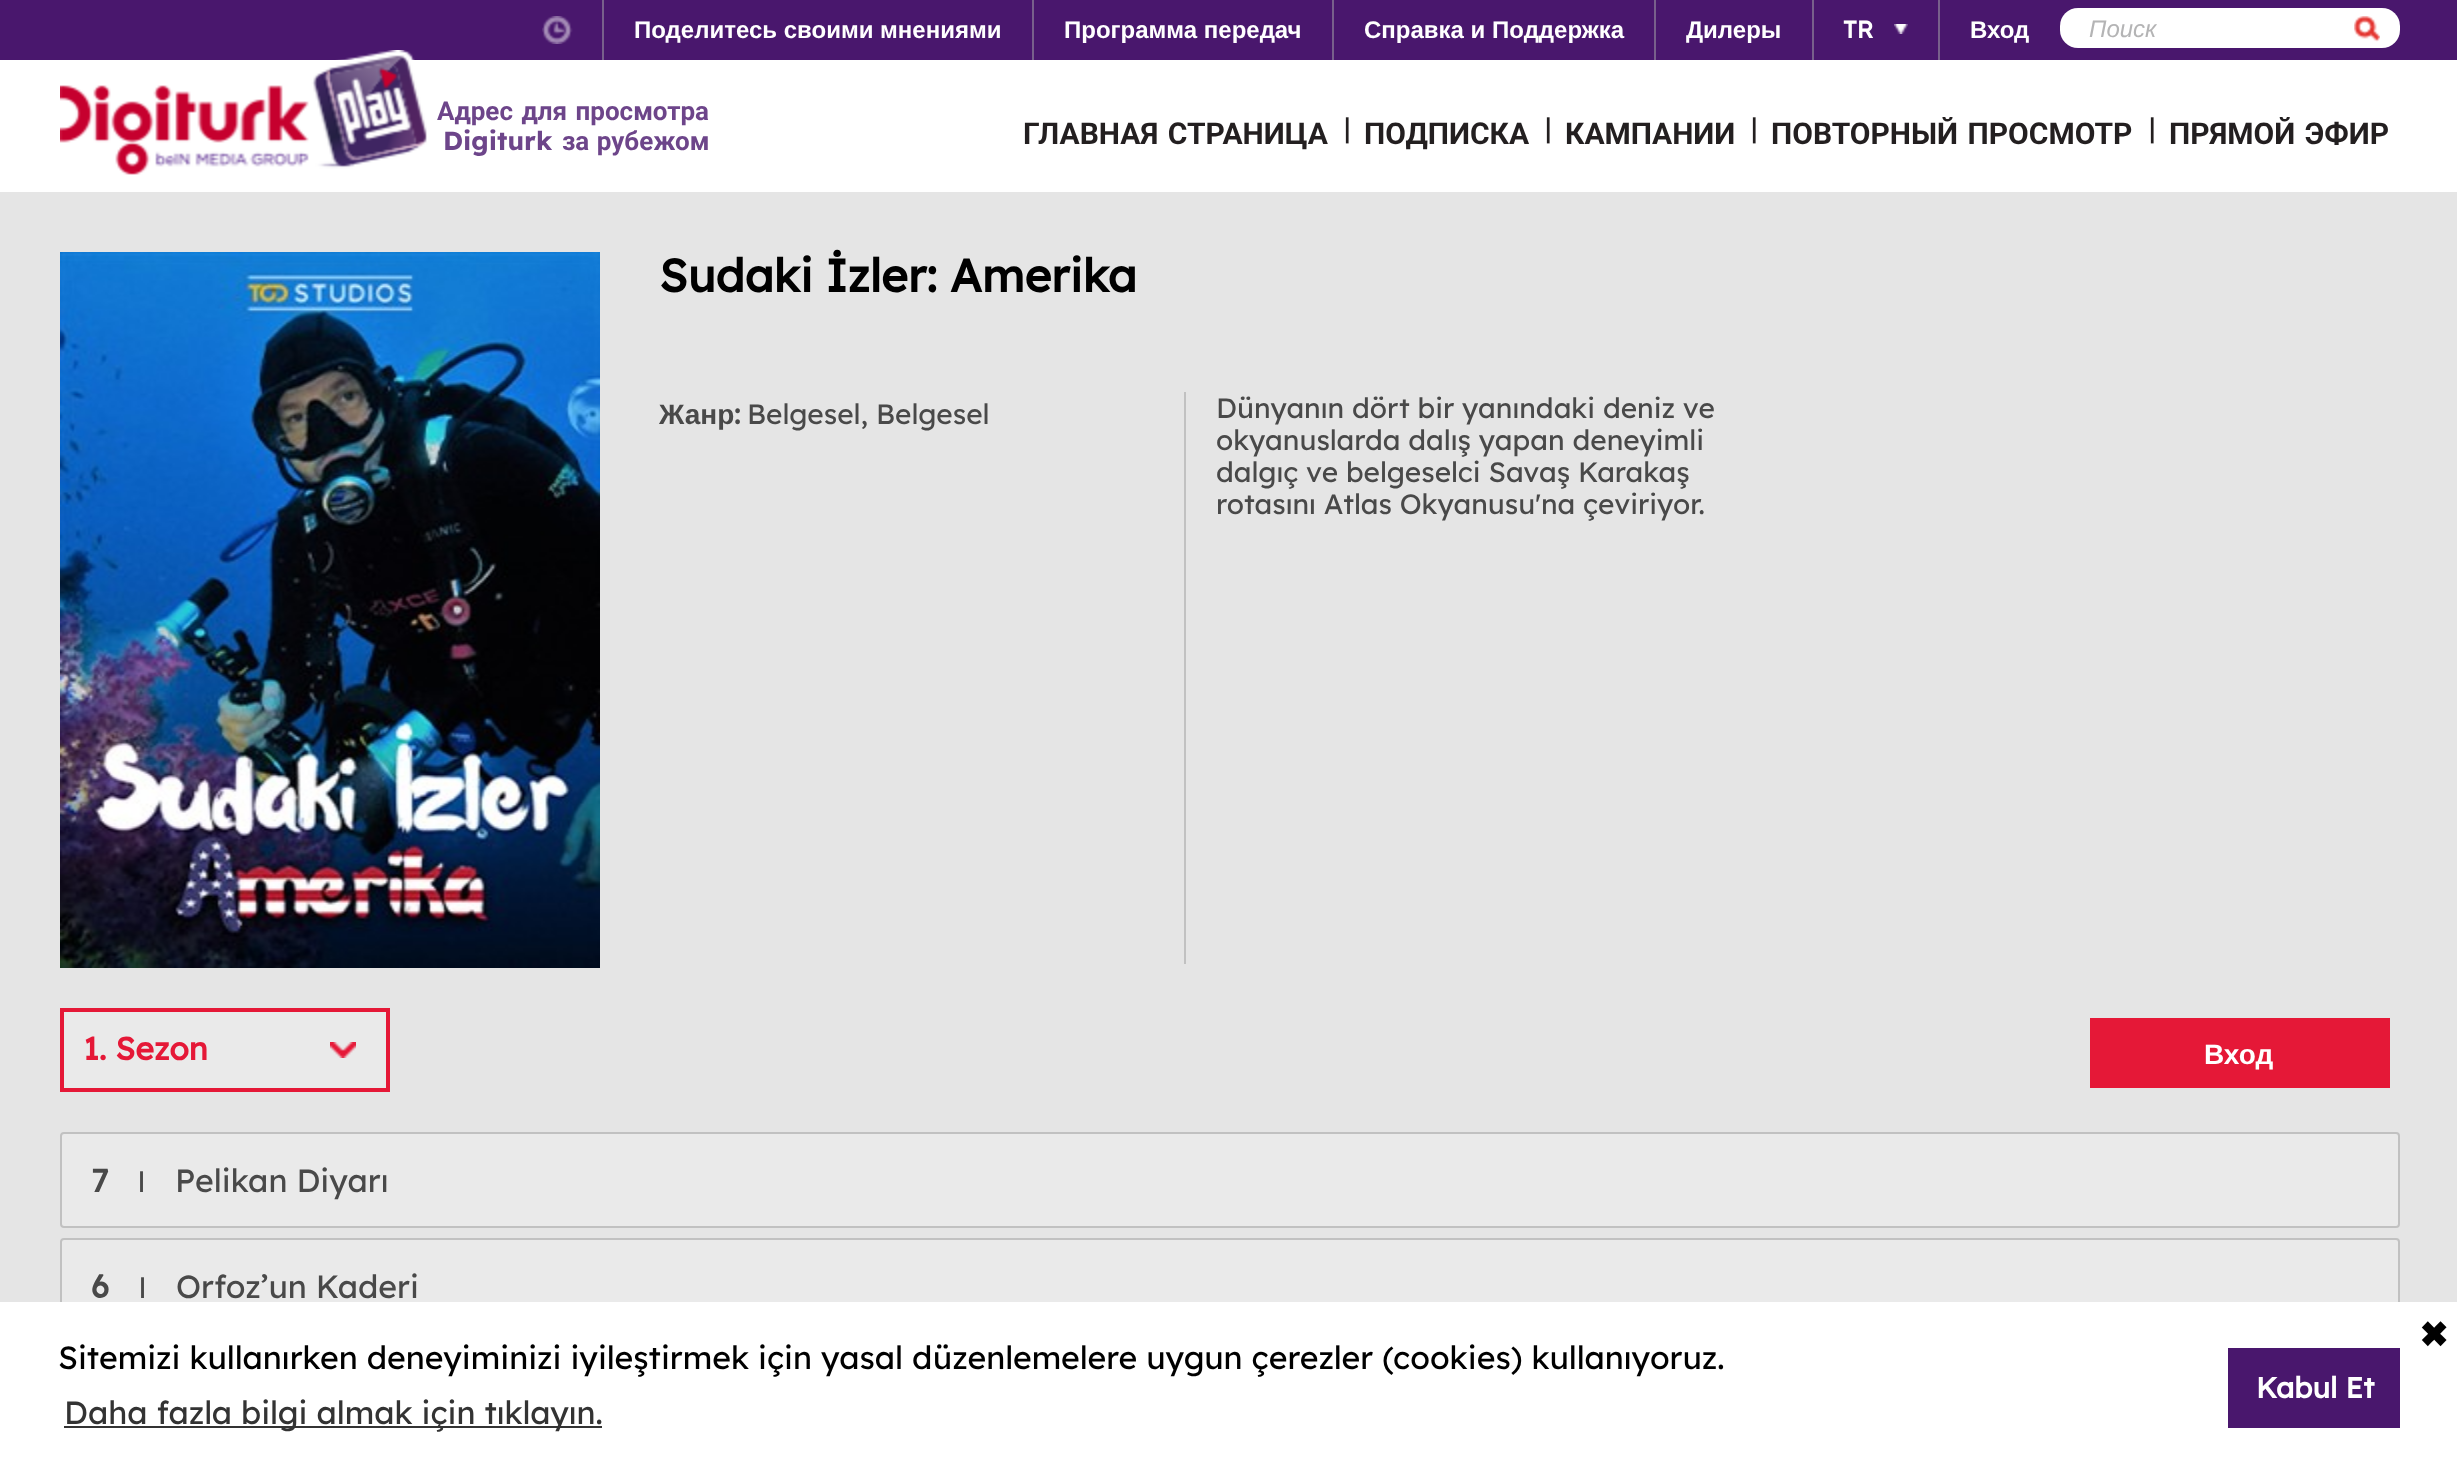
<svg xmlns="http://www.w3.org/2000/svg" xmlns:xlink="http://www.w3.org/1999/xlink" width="2457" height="1474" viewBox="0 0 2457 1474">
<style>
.cls-1{font:bold 24px Liberation Sans;fill:#ffffff}
.cls-2{font:bold 24px Lexend Deca;fill:#ffffff}
.cls-3{font:italic 24px Liberation Sans;fill:#b4b4b5}
.cls-4{font:bold 26px Roboto;fill:#6d458a}
.cls-5{font:bold 26px 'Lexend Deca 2';fill:#6d458a}
.cls-6{font:bold 30px Roboto;fill:#231f20}
.cls-7{font:28px Lexend Deca;fill:#231f20}
.cls-8{font:bold 46px Lexend Deca;fill:#000000}
.cls-9{font:bold 28px Liberation Sans;fill:#494949}
.cls-10{font:bold 28px Lexend Deca;fill:#494949}
.cls-11{font:28px Lexend Deca;fill:#494949}
.cls-12{font:bold 32px Lexend Deca;fill:#e51837}
.cls-13{font:bold 32px Lexend Deca;fill:#494949}
.cls-14{font:32px Lexend Deca;fill:#494949}
.cls-15{font:bold 28px Liberation Sans;fill:#ffffff}
.cls-16{font:32px Lexend Deca;fill:#000000}
.cls-17{font:32px Lexend Deca;fill:#333333}
.cls-18{font:bold 35px DejaVu Sans;fill:#000000}
.cls-19{font:bold 29px Lexend Deca;fill:#ffffff}
</style>
<rect width="100%" height="100%" fill="#e5e5e5"/>
<rect fill="#49176d" x="0" y="0" width="2457" height="60"/>
<rect fill="#78608b" x="602" y="0" width="2" height="60"/>
<image xlink:href="image0.png" x="542" y="16" width="31" height="28"/>
<rect fill="#78608b" x="1032" y="0" width="2" height="60"/>
<rect fill="#78608b" x="1332" y="0" width="2" height="60"/>
<rect fill="#78608b" x="1654" y="0" width="2" height="60"/>
<rect fill="#78608b" x="1812" y="0" width="2" height="60"/>
<rect fill="#78608b" x="1938" y="0" width="2" height="60"/>
<image xlink:href="image1.png" x="1894" y="24" width="14" height="10"/>
<rect fill="#ffffff" x="2060" y="8" width="340" height="40" rx="18"/>
<image xlink:href="image2.png" x="2354" y="16" width="26" height="26"/>
<rect fill="#ffffff" x="0" y="60" width="2457" height="132"/>
<image xlink:href="image3.png" x="60" y="50" width="367" height="125"/>
<image xlink:href="image4.png" x="60" y="252" width="540" height="716"/>
<rect fill="#c1c1c1" x="1184" y="392" width="2" height="572"/>
<rect fill="#eaeaea" stroke="#e51837" stroke-width="4" x="62" y="1010" width="326" height="80"/>
<image xlink:href="image5.png" x="330" y="1042" width="26" height="16"/>
<rect fill="#eaeaea" stroke="#c1c1c1" stroke-width="2" x="61" y="1133" width="2338" height="94" rx="3"/>
<rect fill="#eaeaea" stroke="#c1c1c1" stroke-width="2" x="61" y="1239" width="2338" height="94" rx="3"/>
<rect fill="#e51837" x="2090" y="1018" width="300" height="70"/>
<rect fill="#ffffff" x="0" y="1302" width="2457" height="172"/>
<rect fill="#333333" x="64" y="1426" width="538" height="2"/>
<rect fill="#49176d" x="2228" y="1348" width="172" height="80"/>
<text class="cls-1" x="634" y="38">Поделитесь своими мнениями</text>
<text class="cls-1" x="1064" y="38">Программа передач</text>
<text class="cls-1" x="1364" y="38">Справка и Поддержка</text>
<text class="cls-1" x="1686" y="38">Дилеры</text>
<text class="cls-2" x="1843" y="38">TR</text>
<text class="cls-1" x="1970" y="38">Вход</text>
<text class="cls-3" x="2089" y="37">Поиск</text>
<text class="cls-4" x="437" y="120" word-spacing="2">Адрес для просмотра</text>
<text class="cls-5" x="443" y="150">Digiturk</text>
<text class="cls-4" x="562" y="150" word-spacing="1">за рубежом</text>
<text class="cls-6" x="1023" y="144" word-spacing="2">ГЛАВНАЯ СТРАНИЦА</text>
<text class="cls-7" x="1344" y="138">|</text>
<text class="cls-6" x="1364" y="144">ПОДПИСКА</text>
<text class="cls-7" x="1545" y="138">|</text>
<text class="cls-6" x="1565" y="144">КАМПАНИИ</text>
<text class="cls-7" x="1751" y="138">|</text>
<text class="cls-6" x="1771" y="144" word-spacing="2">ПОВТОРНЫЙ ПРОСМОТР</text>
<text class="cls-7" x="2149" y="138">|</text>
<text class="cls-6" x="2169" y="144" word-spacing="2">ПРЯМОЙ ЭФИР</text>
<text class="cls-8" x="659" y="292">Sudaki İzler: Amerika</text>
<text class="cls-9" x="659" y="424">Жанр</text>
<text class="cls-10" x="734" y="424">:</text>
<text class="cls-11" x="747" y="424">Belgesel, Belgesel</text>
<text class="cls-11"><tspan x="1216" y="418">Dünyanın dört bir yanındaki deniz ve</tspan><tspan x="1216" y="450">okyanuslarda dalış yapan deneyimli</tspan><tspan x="1216" y="482">dalgıç ve belgeselci Savaş Karakaş</tspan><tspan x="1216" y="514">rotasını Atlas Okyanusu'na çeviriyor.</tspan></text>
<text class="cls-12" x="83" y="1060">1. Sezon</text>
<text class="cls-13" x="91" y="1192">7</text>
<text class="cls-11" x="138" y="1192">l</text>
<text class="cls-14" x="175" y="1192">Pelikan Diyarı</text>
<text class="cls-13" x="91" y="1298">6</text>
<text class="cls-11" x="139" y="1298">l</text>
<text class="cls-14" x="176" y="1298">Orfoz’un Kaderi</text>
<text class="cls-15" x="2204" y="1064">Вход</text>
<text class="cls-16" x="58" y="1369">Sitemizi kullanırken deneyiminizi iyileştirmek için yasal düzenlemelere uygun çerezler (cookies) kullanıyoruz.</text>
<text class="cls-17" x="64" y="1424">Daha fazla bilgi almak için tıklayın.</text>
<text class="cls-18" x="2419" y="1347">✖</text>
<text class="cls-19" x="2256" y="1398">Kabul Et</text>
</svg>
